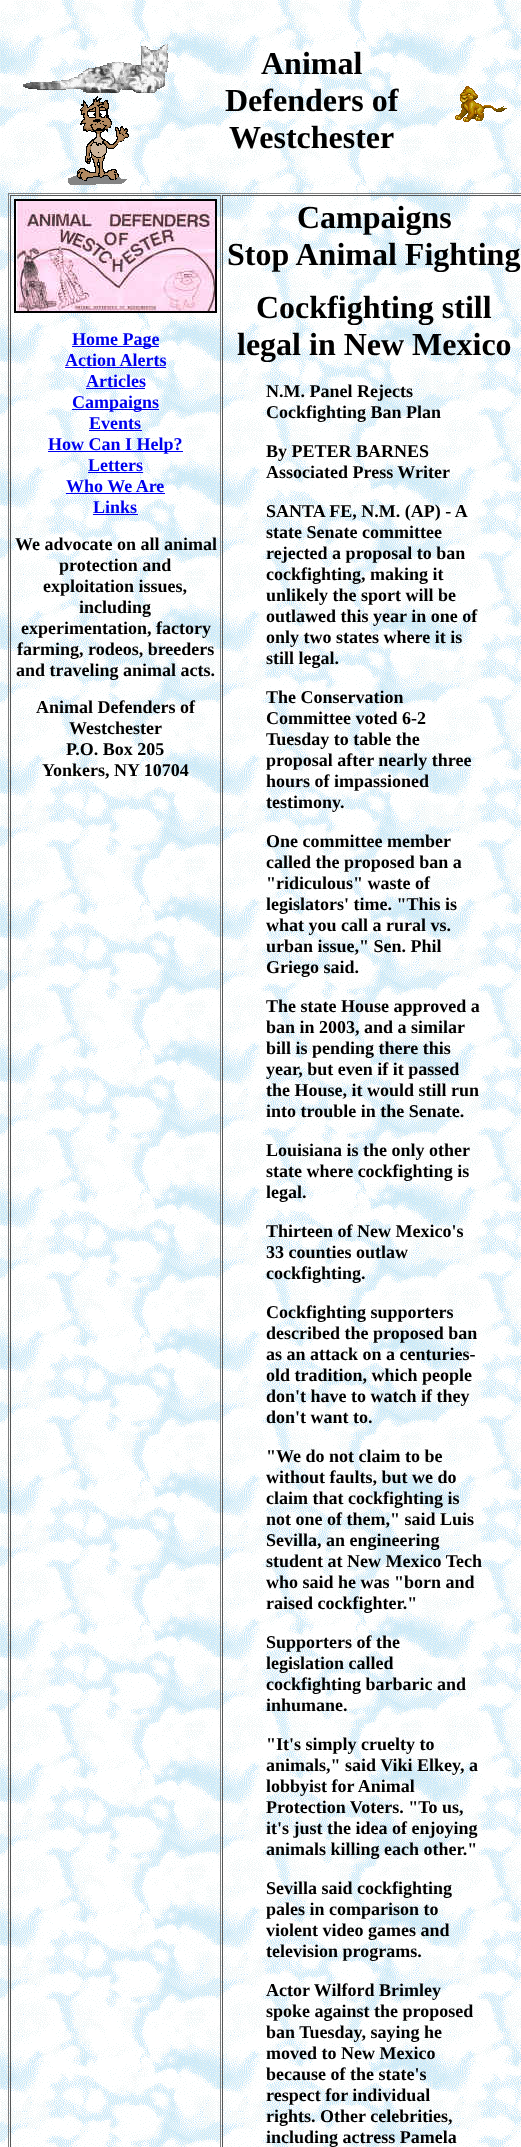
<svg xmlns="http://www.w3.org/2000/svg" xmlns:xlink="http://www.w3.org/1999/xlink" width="521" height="2147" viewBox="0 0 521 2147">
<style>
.cls-1{font:bold 32px Liberation Serif;fill:#000000}
.cls-2{font:bold 18px Liberation Serif;fill:#0000ee}
.cls-3{font:bold 18px Liberation Serif;fill:#000000}
</style>
<rect width="100%" height="100%" fill="#ffffff"/>
<image xlink:href="image0.png" x="0" y="0" width="521" height="2147"/>
<image xlink:href="image1.png" x="23" y="44" width="146" height="49"/>
<image xlink:href="image2.png" x="68" y="96" width="61" height="89"/>
<image xlink:href="image3.png" x="455" y="86" width="52" height="36"/>
<rect fill="#808080" x="8" y="193" width="513" height="1"/>
<rect fill="#808080" x="8" y="193" width="1" height="1954"/>
<rect fill="#555555" x="10" y="195" width="211" height="1"/>
<rect fill="#808080" x="220" y="195" width="1" height="1952"/>
<rect fill="#555555" x="10" y="195" width="1" height="1952"/>
<rect fill="none" stroke="#000000" stroke-width="2" x="15" y="200" width="201" height="112"/>
<image xlink:href="image4.png" x="16" y="201" width="199" height="110"/>
<rect fill="#0000ee" x="72" y="346" width="87" height="1"/>
<rect fill="#0000ee" x="65" y="367" width="101" height="1"/>
<rect fill="#0000ee" x="86" y="388" width="59" height="1"/>
<rect fill="#0000ee" x="72" y="409" width="87" height="1"/>
<rect fill="#0000ee" x="89" y="430" width="53" height="1"/>
<rect fill="#0000ee" x="48" y="451" width="135" height="1"/>
<rect fill="#0000ee" x="88" y="472" width="55" height="1"/>
<rect fill="#0000ee" x="66" y="493" width="99" height="1"/>
<rect fill="#0000ee" x="93" y="514" width="45" height="1"/>
<rect fill="#555555" x="222" y="195" width="299" height="1"/>
<rect fill="#555555" x="222" y="195" width="1" height="1952"/>
<text class="cls-1" x="261" y="74">Animal</text>
<text class="cls-1" x="225" y="111">Defenders of</text>
<text class="cls-1" x="229" y="148">Westchester</text>
<text class="cls-2" x="72" y="345">Home Page</text>
<text class="cls-2" x="65" y="366">Action Alerts</text>
<text class="cls-2" x="86" y="387">Articles</text>
<text class="cls-2" x="72" y="408">Campaigns</text>
<text class="cls-2" x="89" y="429">Events</text>
<text class="cls-2" x="48" y="450">How Can I Help?</text>
<text class="cls-2" x="88" y="471">Letters</text>
<text class="cls-2" x="66" y="492">Who We Are</text>
<text class="cls-2" x="93" y="513">Links</text>
<text class="cls-3" x="15" y="550">We advocate on all animal</text>
<text class="cls-3" x="59" y="571">protection and</text>
<text class="cls-3" x="43" y="592">exploitation issues,</text>
<text class="cls-3" x="79" y="613">including</text>
<text class="cls-3" x="21" y="634">experimentation, factory</text>
<text class="cls-3" x="17" y="655">farming, rodeos, breeders</text>
<text class="cls-3" x="16" y="676">and traveling animal acts.</text>
<text class="cls-3" x="36" y="713">Animal Defenders of</text>
<text class="cls-3" x="69" y="734">Westchester</text>
<text class="cls-3" x="66" y="755">P.O. Box 205</text>
<text class="cls-3" x="42" y="776">Yonkers, NY 10704</text>
<text class="cls-1" x="297" y="228">Campaigns</text>
<text class="cls-1" x="227" y="265">Stop Animal Fighting</text>
<text class="cls-1" x="256" y="318">Cockfighting still</text>
<text class="cls-1" x="237" y="355">legal in New Mexico</text>
<text class="cls-3"><tspan x="266" y="397">N.M. Panel Rejects</tspan><tspan x="266" y="418">Cockfighting Ban Plan</tspan></text>
<text class="cls-3"><tspan x="266" y="457">By PETER BARNES</tspan><tspan x="266" y="478">Associated Press Writer</tspan></text>
<text class="cls-3"><tspan x="266" y="517">SANTA FE, N.M. (AP) - A</tspan><tspan x="266" y="538">state Senate committee</tspan><tspan x="266" y="559">rejected a proposal to ban</tspan><tspan x="266" y="580">cockfighting, making it</tspan><tspan x="266" y="601">unlikely the sport will be</tspan><tspan x="266" y="622">outlawed this year in one of</tspan><tspan x="266" y="643">only two states where it is</tspan><tspan x="266" y="664">still legal.</tspan></text>
<text class="cls-3"><tspan x="266" y="703">The Conservation</tspan><tspan x="266" y="724">Committee voted 6-2</tspan><tspan x="266" y="745">Tuesday to table the</tspan><tspan x="266" y="766">proposal after nearly three</tspan><tspan x="266" y="787">hours of impassioned</tspan><tspan x="266" y="808">testimony.</tspan></text>
<text class="cls-3"><tspan x="266" y="847">One committee member</tspan><tspan x="266" y="868">called the proposed ban a</tspan><tspan x="266" y="889">"ridiculous" waste of</tspan><tspan x="266" y="910">legislators' time. "This is</tspan><tspan x="266" y="931">what you call a rural vs.</tspan><tspan x="266" y="952">urban issue," Sen. Phil</tspan><tspan x="266" y="973">Griego said.</tspan></text>
<text class="cls-3"><tspan x="266" y="1012">The state House approved a</tspan><tspan x="266" y="1033">ban in 2003, and a similar</tspan><tspan x="266" y="1054">bill is pending there this</tspan><tspan x="266" y="1075">year, but even if it passed</tspan><tspan x="266" y="1096">the House, it would still run</tspan><tspan x="266" y="1117">into trouble in the Senate.</tspan></text>
<text class="cls-3"><tspan x="266" y="1156">Louisiana is the only other</tspan><tspan x="266" y="1177">state where cockfighting is</tspan><tspan x="266" y="1198">legal.</tspan></text>
<text class="cls-3"><tspan x="266" y="1237">Thirteen of New Mexico's</tspan><tspan x="266" y="1258">33 counties outlaw</tspan><tspan x="266" y="1279">cockfighting.</tspan></text>
<text class="cls-3"><tspan x="266" y="1318">Cockfighting supporters</tspan><tspan x="266" y="1339">described the proposed ban</tspan><tspan x="266" y="1360">as an attack on a centuries-</tspan><tspan x="266" y="1381">old tradition, which people</tspan><tspan x="266" y="1402">don't have to watch if they</tspan><tspan x="266" y="1423">don't want to.</tspan></text>
<text class="cls-3"><tspan x="266" y="1462">"We do not claim to be</tspan><tspan x="266" y="1483">without faults, but we do</tspan><tspan x="266" y="1504">claim that cockfighting is</tspan><tspan x="266" y="1525">not one of them," said Luis</tspan><tspan x="266" y="1546">Sevilla, an engineering</tspan><tspan x="266" y="1567">student at New Mexico Tech</tspan><tspan x="266" y="1588">who said he was "born and</tspan><tspan x="266" y="1609">raised cockfighter."</tspan></text>
<text class="cls-3"><tspan x="266" y="1648">Supporters of the</tspan><tspan x="266" y="1669">legislation called</tspan><tspan x="266" y="1690">cockfighting barbaric and</tspan><tspan x="266" y="1711">inhumane.</tspan></text>
<text class="cls-3"><tspan x="266" y="1750">"It's simply cruelty to</tspan><tspan x="266" y="1771">animals," said Viki Elkey, a</tspan><tspan x="266" y="1792">lobbyist for Animal</tspan><tspan x="266" y="1813">Protection Voters. "To us,</tspan><tspan x="266" y="1834">it's just the idea of enjoying</tspan><tspan x="266" y="1855">animals killing each other."</tspan></text>
<text class="cls-3"><tspan x="266" y="1894">Sevilla said cockfighting</tspan><tspan x="266" y="1915">pales in comparison to</tspan><tspan x="266" y="1936">violent video games and</tspan><tspan x="266" y="1957">television programs.</tspan></text>
<text class="cls-3"><tspan x="266" y="1996">Actor Wilford Brimley</tspan><tspan x="266" y="2017">spoke against the proposed</tspan><tspan x="266" y="2038">ban Tuesday, saying he</tspan><tspan x="266" y="2059">moved to New Mexico</tspan><tspan x="266" y="2080">because of the state's</tspan><tspan x="266" y="2101">respect for individual</tspan><tspan x="266" y="2122">rights. Other celebrities,</tspan><tspan x="266" y="2143">including actress Pamela</tspan></text>
</svg>
